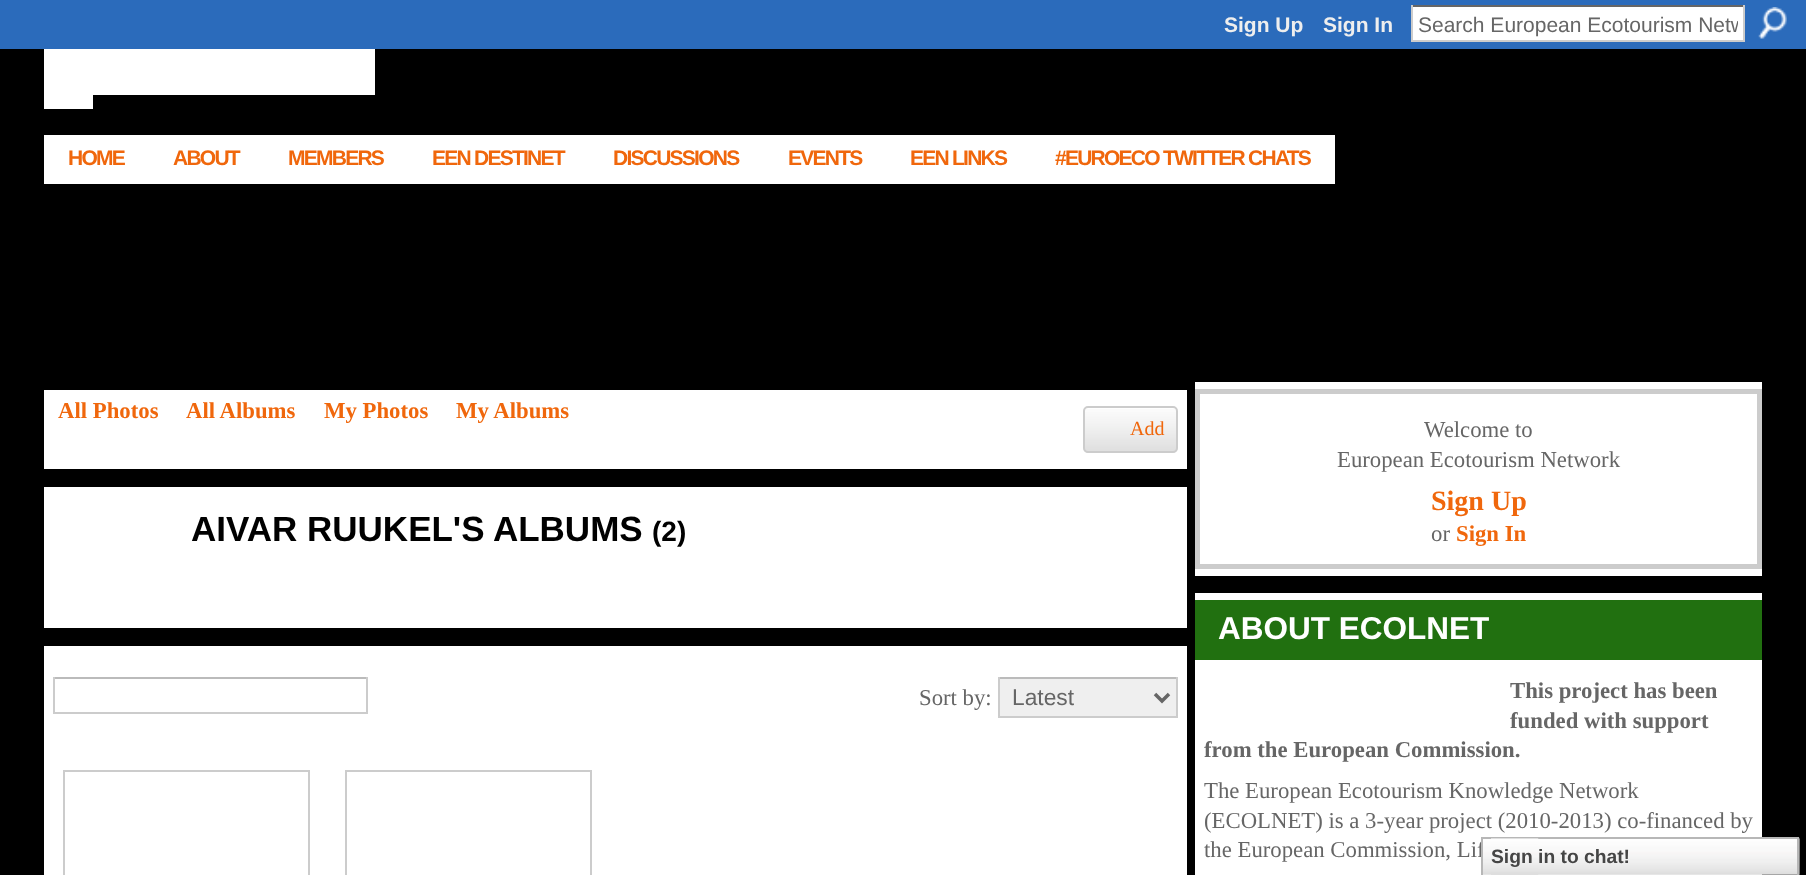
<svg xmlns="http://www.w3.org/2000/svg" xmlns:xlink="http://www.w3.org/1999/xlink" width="1806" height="875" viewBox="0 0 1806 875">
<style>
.cls-1{font:bold 21px Liberation Sans;fill:#eeeeee}
.cls-2{font:21px Liberation Sans;fill:#666666}
.cls-3{font:bold 21px Liberation Sans;letter-spacing:-1.75px;fill:#f0670c}
.cls-4{font:bold 22.75px Liberation Serif;fill:#f0670c}
.cls-5{font:20px Liberation Serif;fill:#f0670c}
.cls-6{font:bold 35px Liberation Sans;fill:#000000}
.cls-7{font:bold 28px Liberation Sans;fill:#000000}
.cls-8{font:22.75px Liberation Serif;fill:#666666}
.cls-9{font:22.75px Liberation Sans;fill:#666666}
.cls-10{font:bold 28px Liberation Serif;fill:#f0670c}
.cls-11{font:bold 31.5px Liberation Sans;fill:#ffffff}
.cls-12{font:bold 22.75px Liberation Serif;fill:#666666}
.cls-13{font:bold 19.25px Liberation Sans;fill:#454545}
</style>
<defs>
<clipPath id="clip1"><rect x="1418" y="12" width="320" height="25"/></clipPath>
</defs>
<rect width="100%" height="100%" fill="#000000"/>
<rect fill="#2b6bbb" x="0" y="0" width="1806" height="49"/>
<rect fill="#ffffff" x="1413" y="7" width="330" height="33"/>
<rect fill="#666666" x="1411" y="5" width="334" height="2"/>
<rect fill="#cccccc" x="1743" y="5" width="2" height="37"/>
<rect fill="#cccccc" x="1411" y="40" width="334" height="2"/>
<rect fill="#cccccc" x="1411" y="5" width="2" height="37"/>
<image xlink:href="image0.png" x="1758" y="7" width="29" height="32"/>
<rect fill="#ffffff" x="44" y="49" width="331" height="46"/>
<rect fill="#ffffff" x="44" y="95" width="49" height="14"/>
<rect fill="#ffffff" x="44" y="135" width="1291" height="49"/>
<rect fill="#ffffff" x="44" y="390" width="1143" height="79"/>
<image xlink:href="image1.png" x="1083" y="409" width="95" height="44"/>
<rect fill="none" stroke="#cccccc" stroke-width="2" x="1084" y="407" width="93" height="45" rx="4"/>
<rect fill="#ffffff" x="44" y="487" width="1143" height="141"/>
<rect fill="#ffffff" x="44" y="646" width="1143" height="229"/>
<rect fill="#bbbbbb" x="53" y="677" width="315" height="2"/>
<rect fill="#cccccc" x="366" y="677" width="2" height="37"/>
<rect fill="#cccccc" x="53" y="712" width="315" height="2"/>
<rect fill="#cccccc" x="53" y="677" width="2" height="37"/>
<rect fill="#efefef" x="1000" y="679" width="176" height="37"/>
<rect fill="#bbbbbb" x="998" y="677" width="180" height="2"/>
<rect fill="#cccccc" x="1176" y="677" width="2" height="41"/>
<rect fill="#cccccc" x="998" y="716" width="180" height="2"/>
<rect fill="#cccccc" x="998" y="677" width="2" height="41"/>
<path fill="none" stroke="#666666" stroke-width="3.5" d="M1155 694L1162 701L1169 694"/>
<rect fill="#cccccc" x="63" y="770" width="247" height="2"/>
<rect fill="#cccccc" x="308" y="770" width="2" height="105"/>
<rect fill="#cccccc" x="63" y="770" width="2" height="105"/>
<rect fill="#cccccc" x="345" y="770" width="247" height="2"/>
<rect fill="#cccccc" x="590" y="770" width="2" height="105"/>
<rect fill="#cccccc" x="345" y="770" width="2" height="105"/>
<rect fill="#ffffff" x="1195" y="382" width="567" height="194"/>
<rect fill="none" stroke="#cccccc" stroke-width="5" x="1197.5" y="391.5" width="562" height="175"/>
<rect fill="#ffffff" x="1195" y="593" width="567" height="282"/>
<rect fill="#217010" x="1195" y="600" width="567" height="60"/>
<text class="cls-1" x="1224" y="32">Sign Up</text>
<text class="cls-1" x="1323" y="32">Sign In</text>
<g clip-path="url(#clip1)">
<text class="cls-2" x="1418" y="32">Search European Ecotourism Netw</text>
</g>
<text class="cls-3" x="68" y="165">HOME</text>
<text class="cls-3" x="173" y="165">ABOUT</text>
<text class="cls-3" x="288" y="165">MEMBERS</text>
<text class="cls-3" x="432" y="165">EEN DESTINET</text>
<text class="cls-3" x="613" y="165">DISCUSSIONS</text>
<text class="cls-3" x="788" y="165">EVENTS</text>
<text class="cls-3" x="910" y="165">EEN LINKS</text>
<text class="cls-3" x="1055" y="165">#EUROECO TWITTER CHATS</text>
<text class="cls-4" x="58" y="418">All Photos</text>
<text class="cls-4" x="186" y="418">All Albums</text>
<text class="cls-4" x="324" y="418">My Photos</text>
<text class="cls-4" x="456" y="418">My Albums</text>
<text class="cls-5" x="1130" y="435">Add</text>
<text class="cls-6" x="191" y="541">AIVAR RUUKEL'S ALBUMS</text>
<text class="cls-7" x="652" y="541">(2)</text>
<text class="cls-8" x="919" y="705">Sort by:</text>
<text class="cls-9" x="1012" y="705">Latest</text>
<text class="cls-8" x="1424" y="437">Welcome to</text>
<text class="cls-8" x="1337" y="467">European Ecotourism Network</text>
<text class="cls-10" x="1431" y="510">Sign Up</text>
<text class="cls-8" x="1431" y="541">or</text>
<text class="cls-4" x="1456" y="541">Sign In</text>
<text class="cls-11" x="1218" y="639">ABOUT ECOLNET</text>
<text class="cls-12"><tspan x="1510" y="698">This project has been</tspan><tspan x="1510" y="728">funded with support</tspan></text>
<text class="cls-12" x="1204" y="757">from the European Commission.</text>
<text class="cls-8"><tspan x="1204" y="798">The European Ecotourism Knowledge Network</tspan><tspan x="1204" y="828">(ECOLNET) is a 3-year project (2010-2013) co-financed by</tspan><tspan x="1204" y="857">the European Commission, Lif</tspan></text>
<image xlink:href="image2.png" x="1483" y="837" width="317" height="38"/>
<rect fill="none" stroke="#b7b7b7" stroke-width="2" x="1482" y="838" width="316" height="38"/>
<image xlink:href="image3.png" x="1491" y="838" width="48" height="37"/>
<text class="cls-13" x="1491" y="863">Sign in to chat!</text>
</svg>
